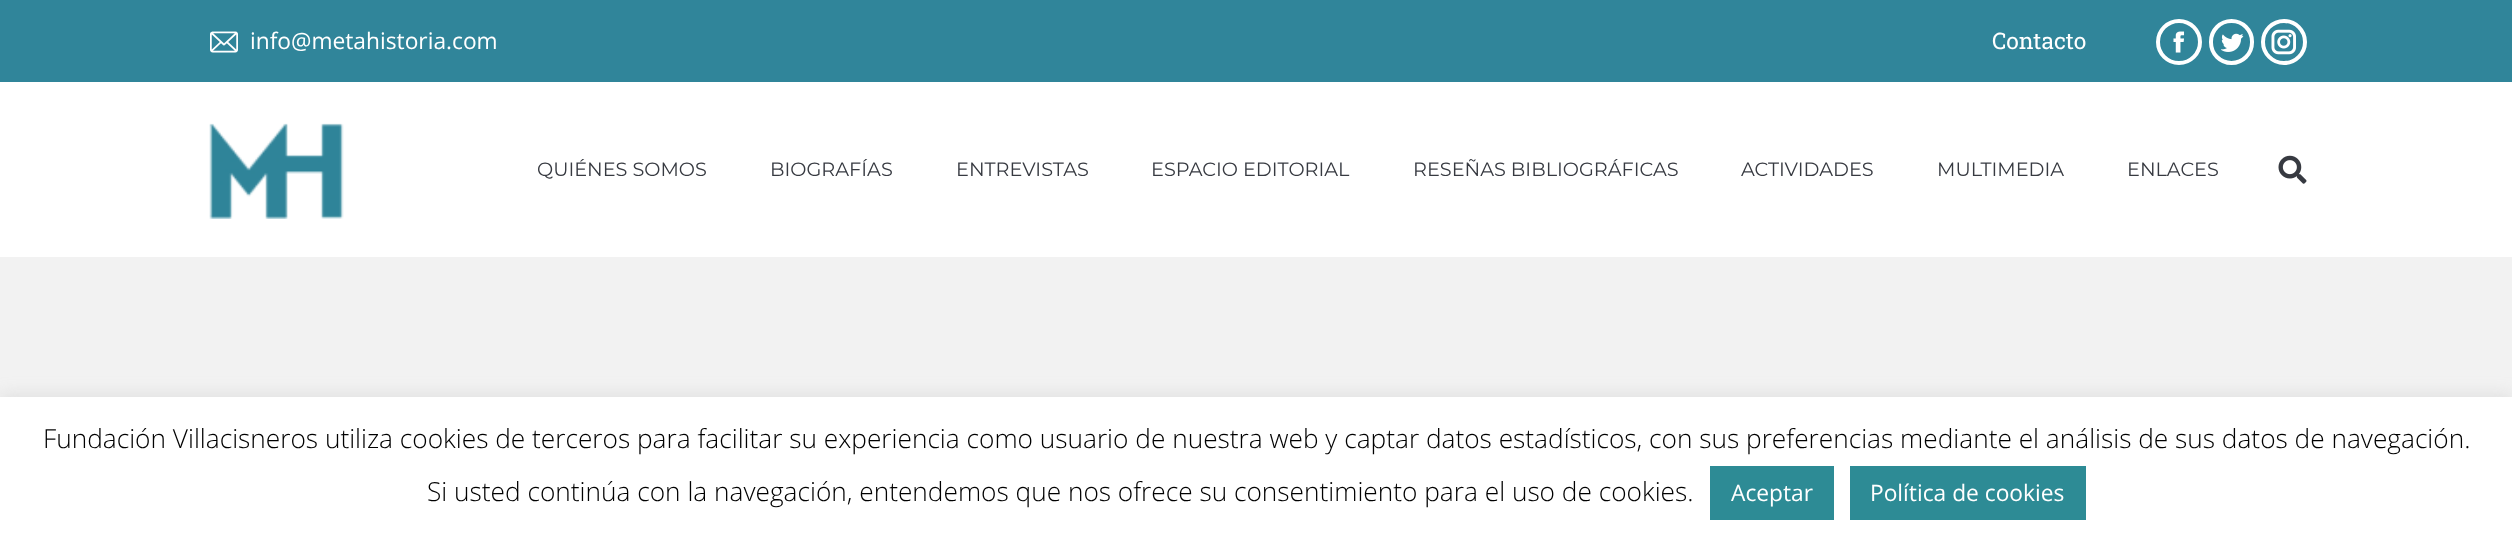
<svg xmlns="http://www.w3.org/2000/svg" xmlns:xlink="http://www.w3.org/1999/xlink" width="2512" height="540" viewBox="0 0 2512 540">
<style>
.cls-1{font:22.75px Open Sans;fill:#ffffff}
.cls-2{font:22.75px Roboto Slab;fill:#ffffff}
.cls-3{font:19.25px Montserrat;fill:#373a41}
.cls-4{font:300 26.25px Open Sans;fill:#000000}
</style>
<rect width="100%" height="100%" fill="#ffffff"/>
<rect fill="#30859a" x="0" y="0" width="2512" height="82"/>
<image xlink:href="image0.png" x="210" y="31" width="28" height="22"/>
<circle fill="none" stroke="#ffffff" stroke-width="4" cx="2179" cy="42" r="21"/>
<image xlink:href="image1.png" x="2173" y="31" width="12" height="22"/>
<rect fill="none" stroke="#ffffff" stroke-width="4" x="2211" y="21" width="41" height="42" rx="20.5"/>
<image xlink:href="image2.png" x="2221" y="33" width="23" height="19"/>
<circle fill="none" stroke="#ffffff" stroke-width="4" cx="2284" cy="42" r="21"/>
<image xlink:href="image3.png" x="2271" y="29" width="25" height="26"/>
<image xlink:href="image4.png" x="209" y="123" width="135" height="96"/>
<image xlink:href="image5.png" x="2278" y="155" width="29" height="29"/>
<rect fill="#f2f2f2" x="0" y="257" width="2512" height="140"/>
<rect fill="#acabab" fill-opacity="0.3" filter="blur(9px)" x="0" y="396" width="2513" height="143"/>
<rect fill="#ffffff" x="0" y="397" width="2512" height="143"/>
<rect fill="#2d8b95" x="1710" y="466" width="124" height="54"/>
<rect fill="#2d8b95" x="1850" y="466" width="236" height="54"/>
<text class="cls-1" x="250" y="49">info@metahistoria.com</text>
<text class="cls-2" x="1992" y="49">Contacto</text>
<text class="cls-3" x="537" y="176">QUIÉNES SOMOS</text>
<text class="cls-3" x="770" y="176">BIOGRAFÍAS</text>
<text class="cls-3" x="956" y="176">ENTREVISTAS</text>
<text class="cls-3" x="1151" y="176">ESPACIO EDITORIAL</text>
<text class="cls-3" x="1413" y="176">RESEÑAS BIBLIOGRÁFICAS</text>
<text class="cls-3" x="1741" y="176">ACTIVIDADES</text>
<text class="cls-3" x="1937" y="176">MULTIMEDIA</text>
<text class="cls-3" x="2127" y="176">ENLACES</text>
<text class="cls-4" x="43" y="448">Fundación Villacisneros utiliza cookies de terceros para facilitar su experiencia como usuario de nuestra web y captar datos estadísticos, con sus preferencias mediante el análisis de sus datos de navegación.</text>
<text class="cls-4" x="427" y="501">Si usted continúa con la navegación, entendemos que nos ofrece su consentimiento para el uso de cookies.</text>
<text class="cls-1" x="1731" y="501">Aceptar</text>
<text class="cls-1" x="1870" y="501">Política de cookies</text>
</svg>
